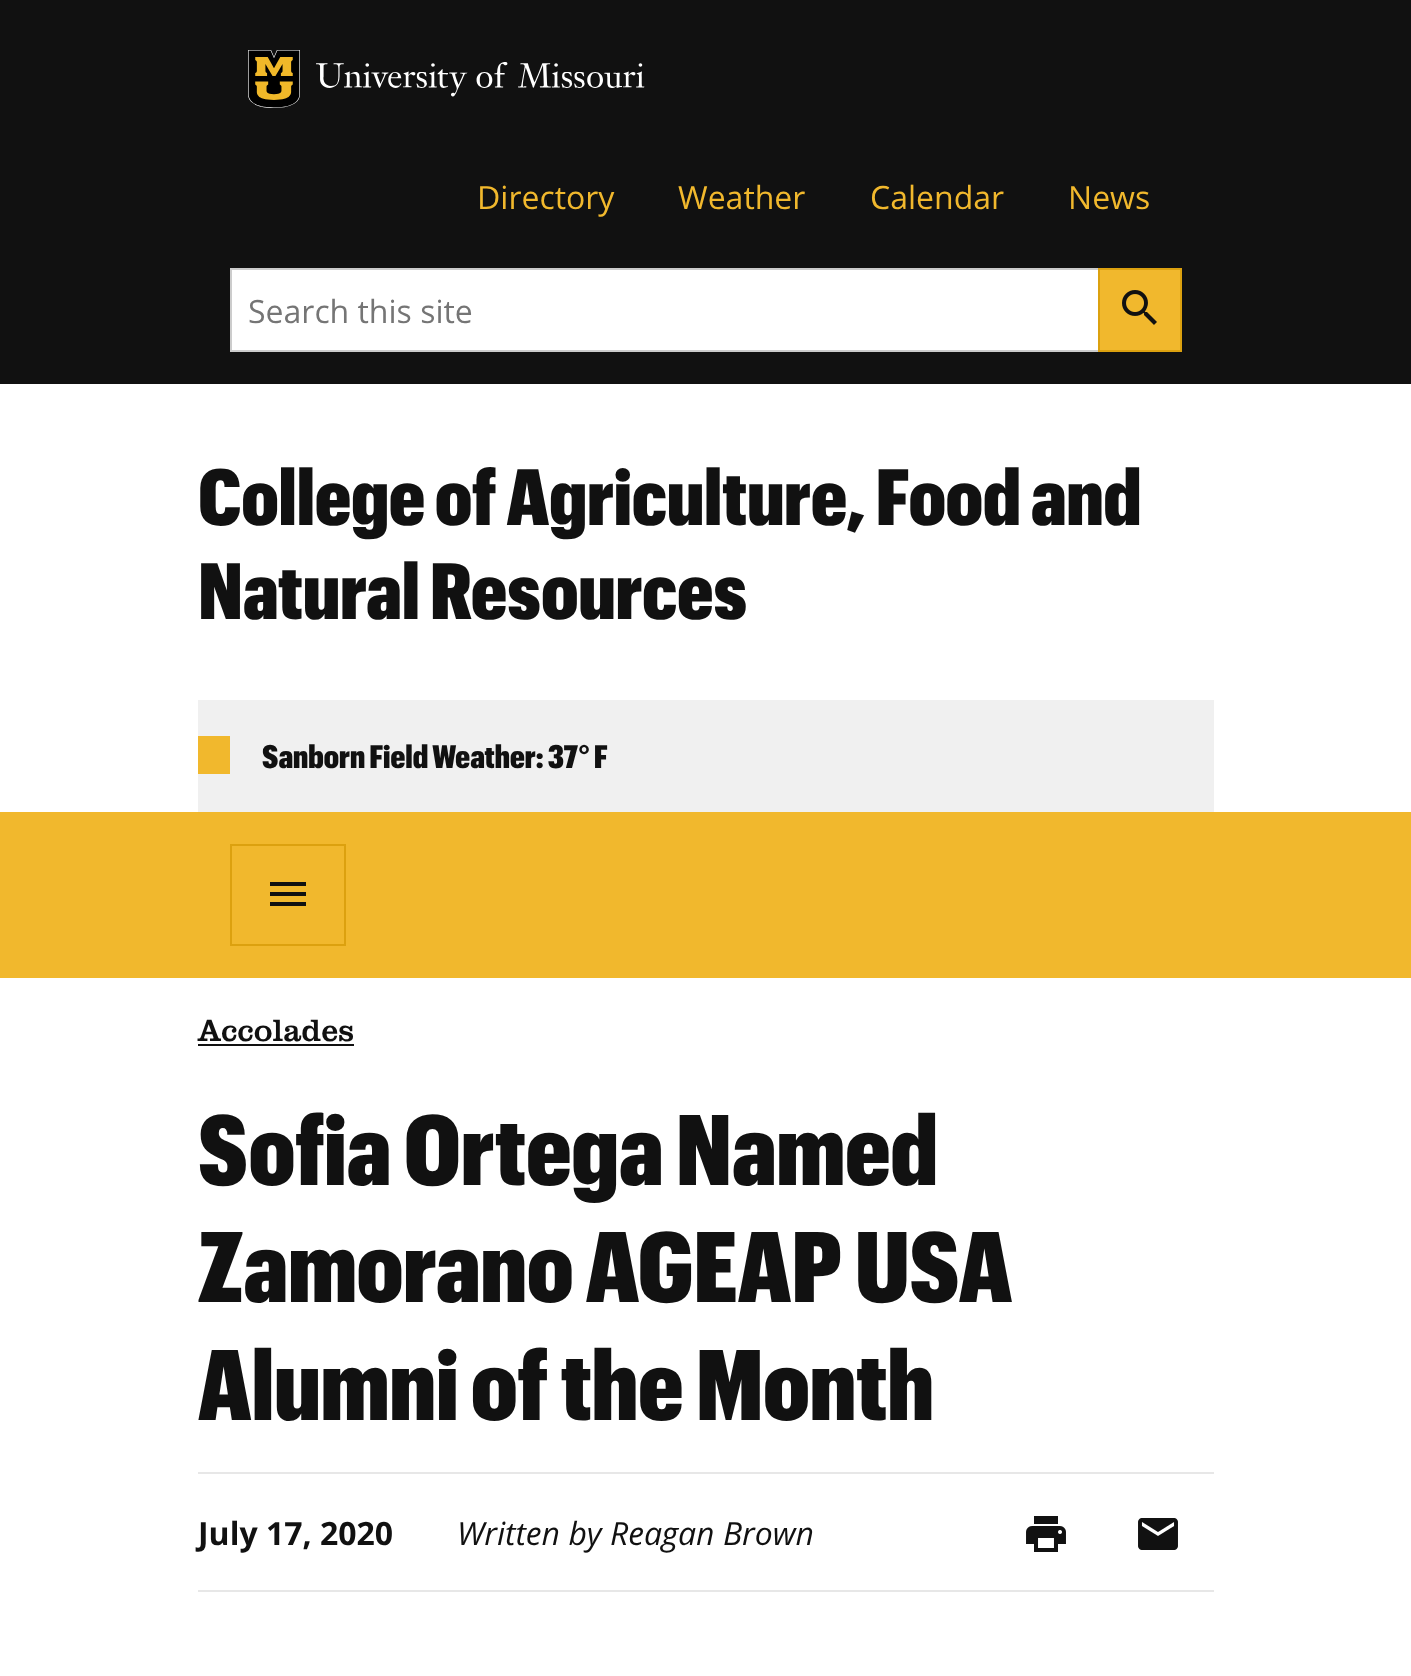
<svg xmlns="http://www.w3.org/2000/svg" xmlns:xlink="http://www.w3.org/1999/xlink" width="1411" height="1676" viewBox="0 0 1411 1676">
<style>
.cls-1{font:32px Open Sans;fill:#f1b82d}
.cls-2{font:32px Open Sans;fill:#757575}
.cls-3{font:800 78.1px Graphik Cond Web;fill:#111111}
.cls-4{font:800 32px Graphik Cond Web;fill:#111111}
.cls-5{font:32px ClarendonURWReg;fill:#111111}
.cls-6{font:800 97.75px Graphik Cond Web;fill:#111111}
.cls-7{font:bold 32px Open Sans;fill:#111111}
.cls-8{font:italic 32px Open Sans;fill:#111111}
</style>
<rect width="100%" height="100%" fill="#ffffff"/>
<rect fill="#111111" x="0" y="0" width="1411" height="384"/>
<image xlink:href="image0.png" x="248" y="50" width="52" height="58"/>
<image xlink:href="image1.png" x="316" y="62" width="329" height="35"/>
<rect fill="#ffffff" stroke="#cccccc" stroke-width="2" x="231" y="269" width="868" height="82"/>
<rect fill="#f1b82d" stroke="#dca10f" stroke-width="2" x="1099" y="269" width="82" height="82"/>
<image xlink:href="image2.png" x="1122" y="290" width="35" height="35"/>
<rect fill="#f0f0f0" x="198" y="700" width="1016" height="112"/>
<rect fill="#f1b82d" x="198" y="736" width="32" height="38"/>
<rect fill="#f1b82d" x="0" y="812" width="1411" height="166"/>
<rect fill="none" stroke="#dca10f" stroke-width="2" x="231" y="845" width="114" height="100"/>
<path fill="#111111" d="M270 882H306V886H270ZM270 896V892H306V896ZM270 906V902H306V906Z"/>
<rect fill="#111111" x="198" y="1044" width="156" height="2"/>
<rect fill="#e7e7e7" x="198" y="1472" width="1016" height="2"/>
<image xlink:href="image3.png" x="1026" y="1516" width="40" height="36"/>
<image xlink:href="image4.png" x="1138" y="1518" width="40" height="32"/>
<rect fill="#e7e7e7" x="198" y="1590" width="1016" height="2"/>
<text class="cls-1" x="477" y="209">Directory</text>
<text class="cls-1" x="678" y="209">Weather</text>
<text class="cls-1" x="870" y="209">Calendar</text>
<text class="cls-1" x="1068" y="209">News</text>
<text class="cls-2" x="248" y="323">Search this site</text>
<text class="cls-3"><tspan x="198" y="525">College of Agriculture, Food and</tspan><tspan x="198" y="619">Natural Resources</tspan></text>
<text class="cls-4" x="262" y="768">Sanborn Field Weather: 37° F</text>
<text class="cls-5" x="198" y="1041">Accolades</text>
<text class="cls-6"><tspan x="198" y="1185">Sofia Ortega Named</tspan><tspan x="198" y="1302">Zamorano AGEAP USA</tspan><tspan x="198" y="1420">Alumni of the Month</tspan></text>
<text class="cls-7" x="198" y="1545">July 17, 2020</text>
<text class="cls-8" x="457" y="1545">Written by Reagan Brown</text>
</svg>
